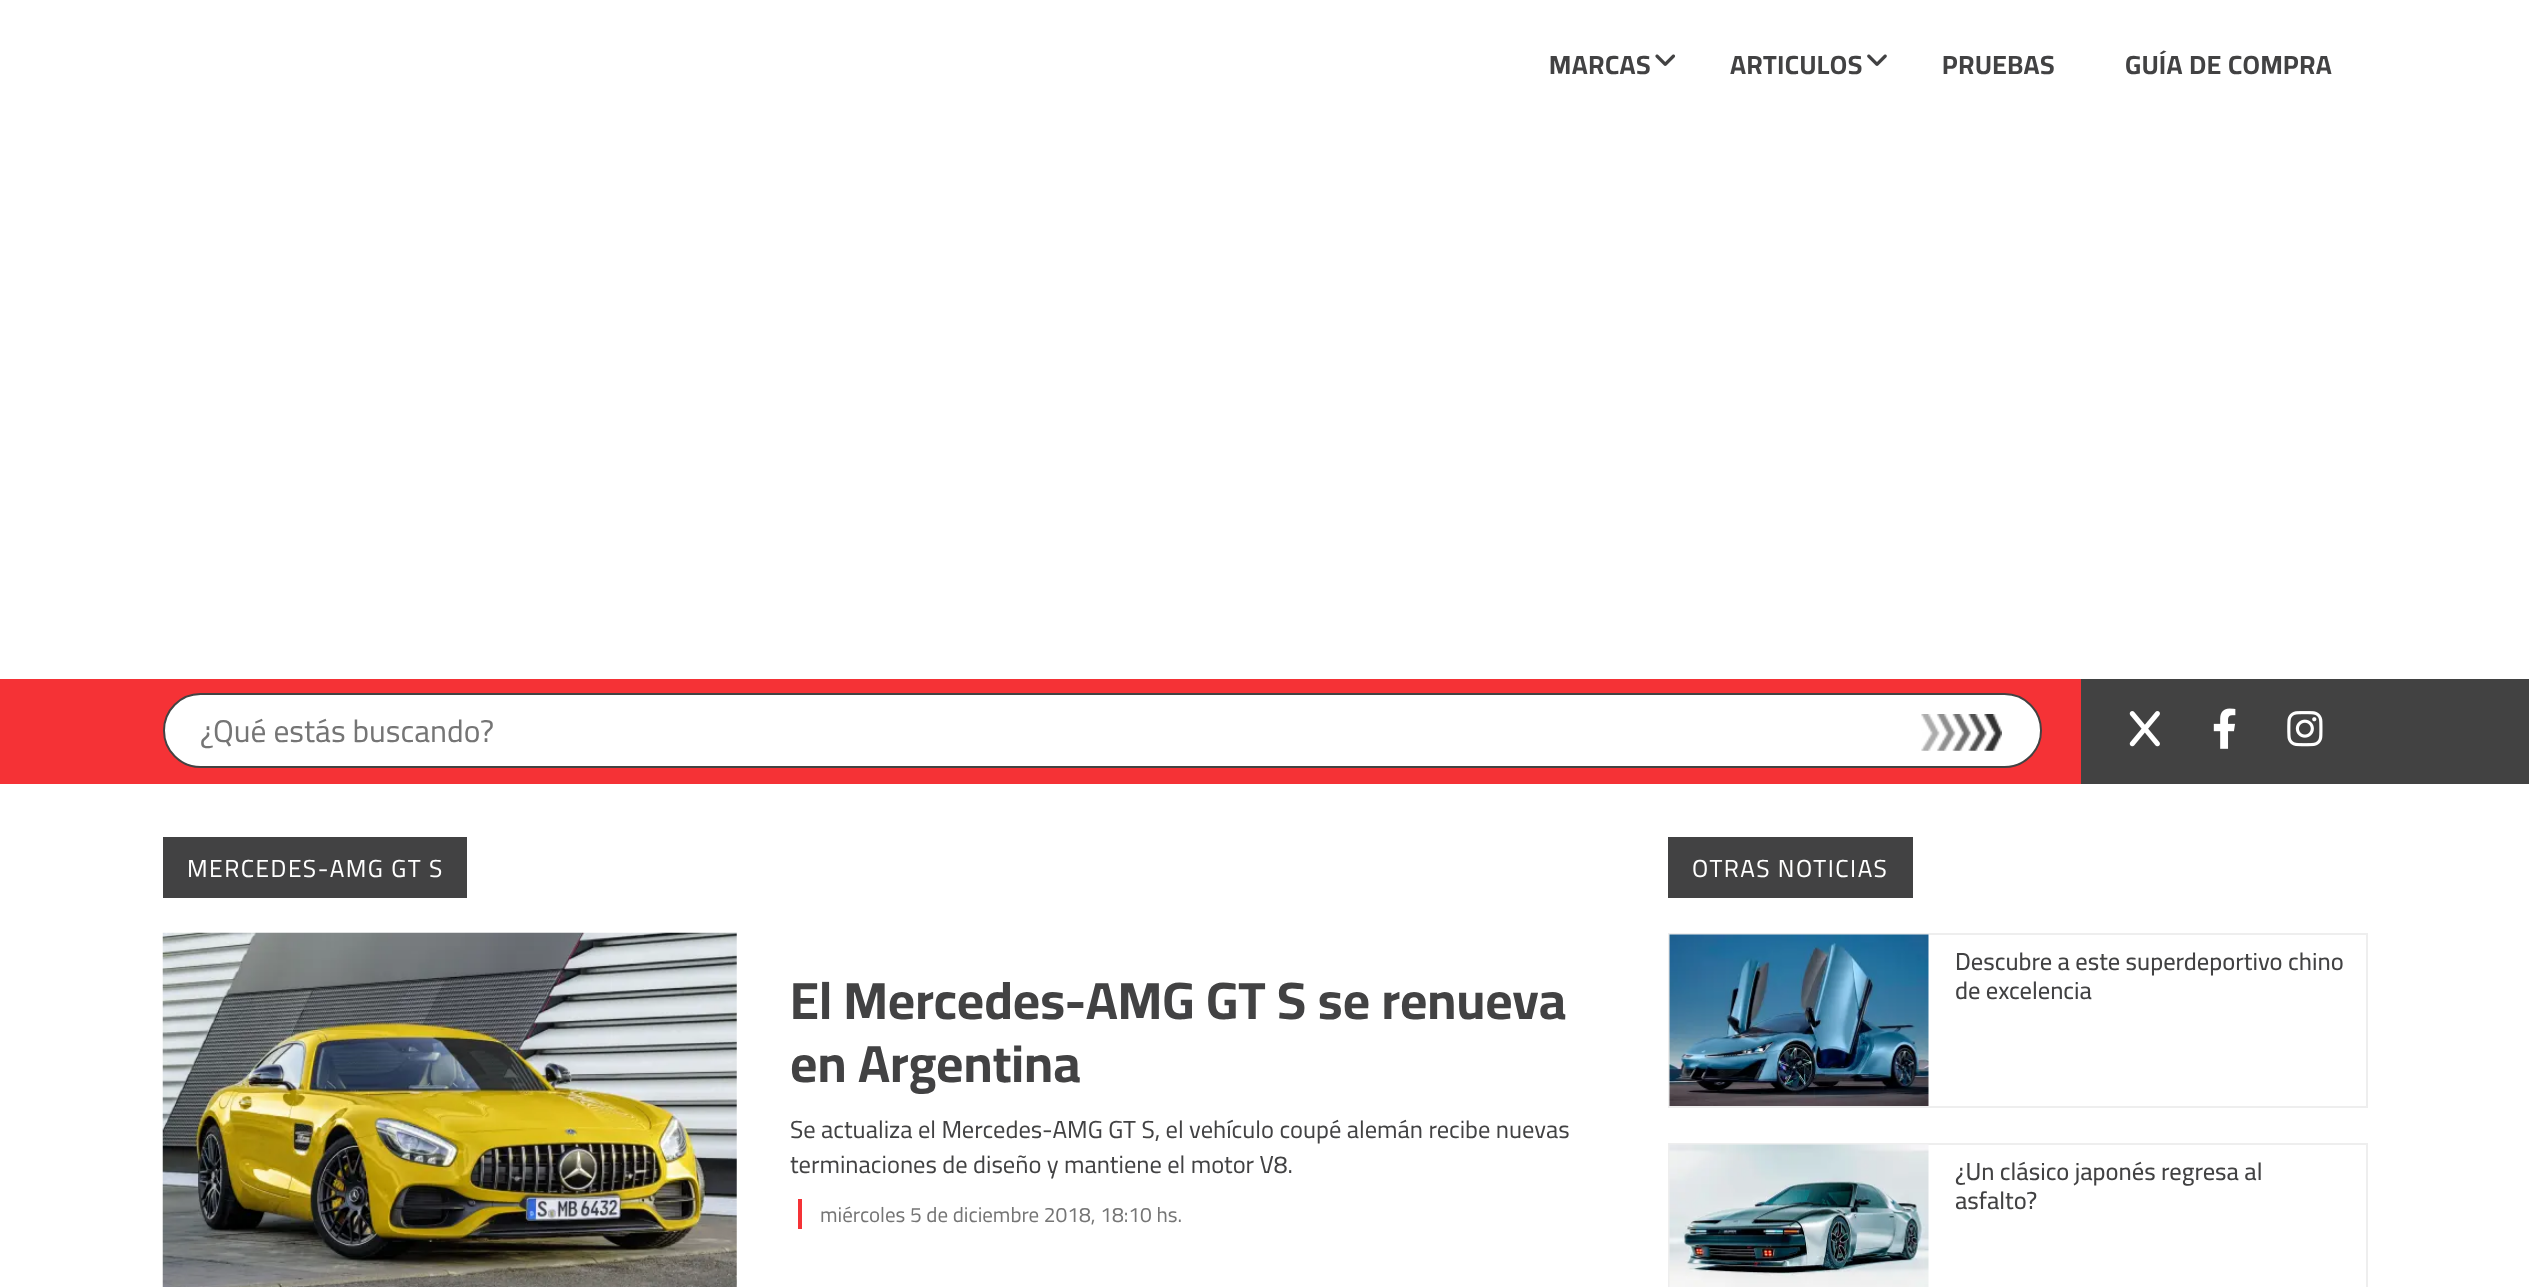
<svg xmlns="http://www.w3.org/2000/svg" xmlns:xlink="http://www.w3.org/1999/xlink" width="2529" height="1287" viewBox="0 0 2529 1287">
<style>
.cls-1{font:bold 26.25px Cairo;letter-spacing:0.5px;fill:#424243}
.cls-2{font:31.5px Cairo;fill:#757575}
.cls-3{font:24.5px Cairo;letter-spacing:1.5px;fill:#ffffff}
.cls-4{font:bold 52.5px Cairo;fill:#424243}
.cls-5{font:24.5px Cairo;fill:#424243}
.cls-6{font:21px Cairo;fill:#757575}
.cls-7{font:500 24.5px Cairo;fill:#424243}
</style>
<rect width="100%" height="100%" fill="#ffffff"/>
<image xlink:href="image0.png" x="1655" y="54" width="21" height="12"/>
<image xlink:href="image1.png" x="1867" y="54" width="20" height="12"/>
<rect fill="#424242" x="2081" y="679" width="448" height="105"/>
<rect fill="#f53236" x="0" y="679" width="2081" height="105"/>
<rect fill="#ffffff" stroke="#424242" stroke-width="2" x="164" y="694" width="1877" height="73" rx="36.5"/>
<image xlink:href="image2.png" x="1921" y="714" width="81" height="37"/>
<image xlink:href="image3.png" x="2129" y="711" width="31" height="36"/>
<image xlink:href="image4.png" x="2213" y="708" width="23" height="41"/>
<image xlink:href="image5.png" x="2287" y="711" width="36" height="36"/>
<rect fill="#424243" x="163" y="837" width="304" height="61"/>
<image xlink:href="image6.png" x="162" y="932" width="575" height="355"/>
<rect fill="#f53236" x="798" y="1199" width="4" height="30"/>
<rect fill="#424243" x="1668" y="837" width="245" height="61"/>
<rect fill="none" stroke="#eeeeee" stroke-width="2" x="1669" y="934" width="698" height="173"/>
<image xlink:href="image7.png" x="1669" y="934" width="260" height="172"/>
<rect fill="none" stroke="#eeeeee" stroke-width="2" x="1669" y="1144" width="698" height="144"/>
<image xlink:href="image8.png" x="1669" y="1144" width="260" height="143"/>
<text class="cls-1" x="1549" y="74">MARCAS</text>
<text class="cls-1" x="1730" y="74">ARTICULOS</text>
<text class="cls-1" x="1942" y="74">PRUEBAS</text>
<text class="cls-1" x="2125" y="74">GUÍA DE COMPRA</text>
<text class="cls-2" x="200" y="742">¿Qué estás buscando?</text>
<text class="cls-3" x="187" y="877">MERCEDES-AMG GT S</text>
<text class="cls-4"><tspan x="790" y="1019">El Mercedes-AMG GT S se renueva</tspan><tspan x="790" y="1082">en Argentina</tspan></text>
<text class="cls-5"><tspan x="790" y="1138">Se actualiza el Mercedes-AMG GT S, el vehículo coupé alemán recibe nuevas</tspan><tspan x="790" y="1173">terminaciones de diseño y mantiene el motor V8.</tspan></text>
<text class="cls-6" x="820" y="1222">miércoles 5 de diciembre 2018, 18:10 hs.</text>
<text class="cls-3" x="1692" y="877">OTRAS NOTICIAS</text>
<text class="cls-7"><tspan x="1955" y="970">Descubre a este superdeportivo chino</tspan><tspan x="1955" y="999">de excelencia</tspan></text>
<text class="cls-7"><tspan x="1955" y="1180">¿Un clásico japonés regresa al</tspan><tspan x="1955" y="1209">asfalto?</tspan></text>
</svg>
